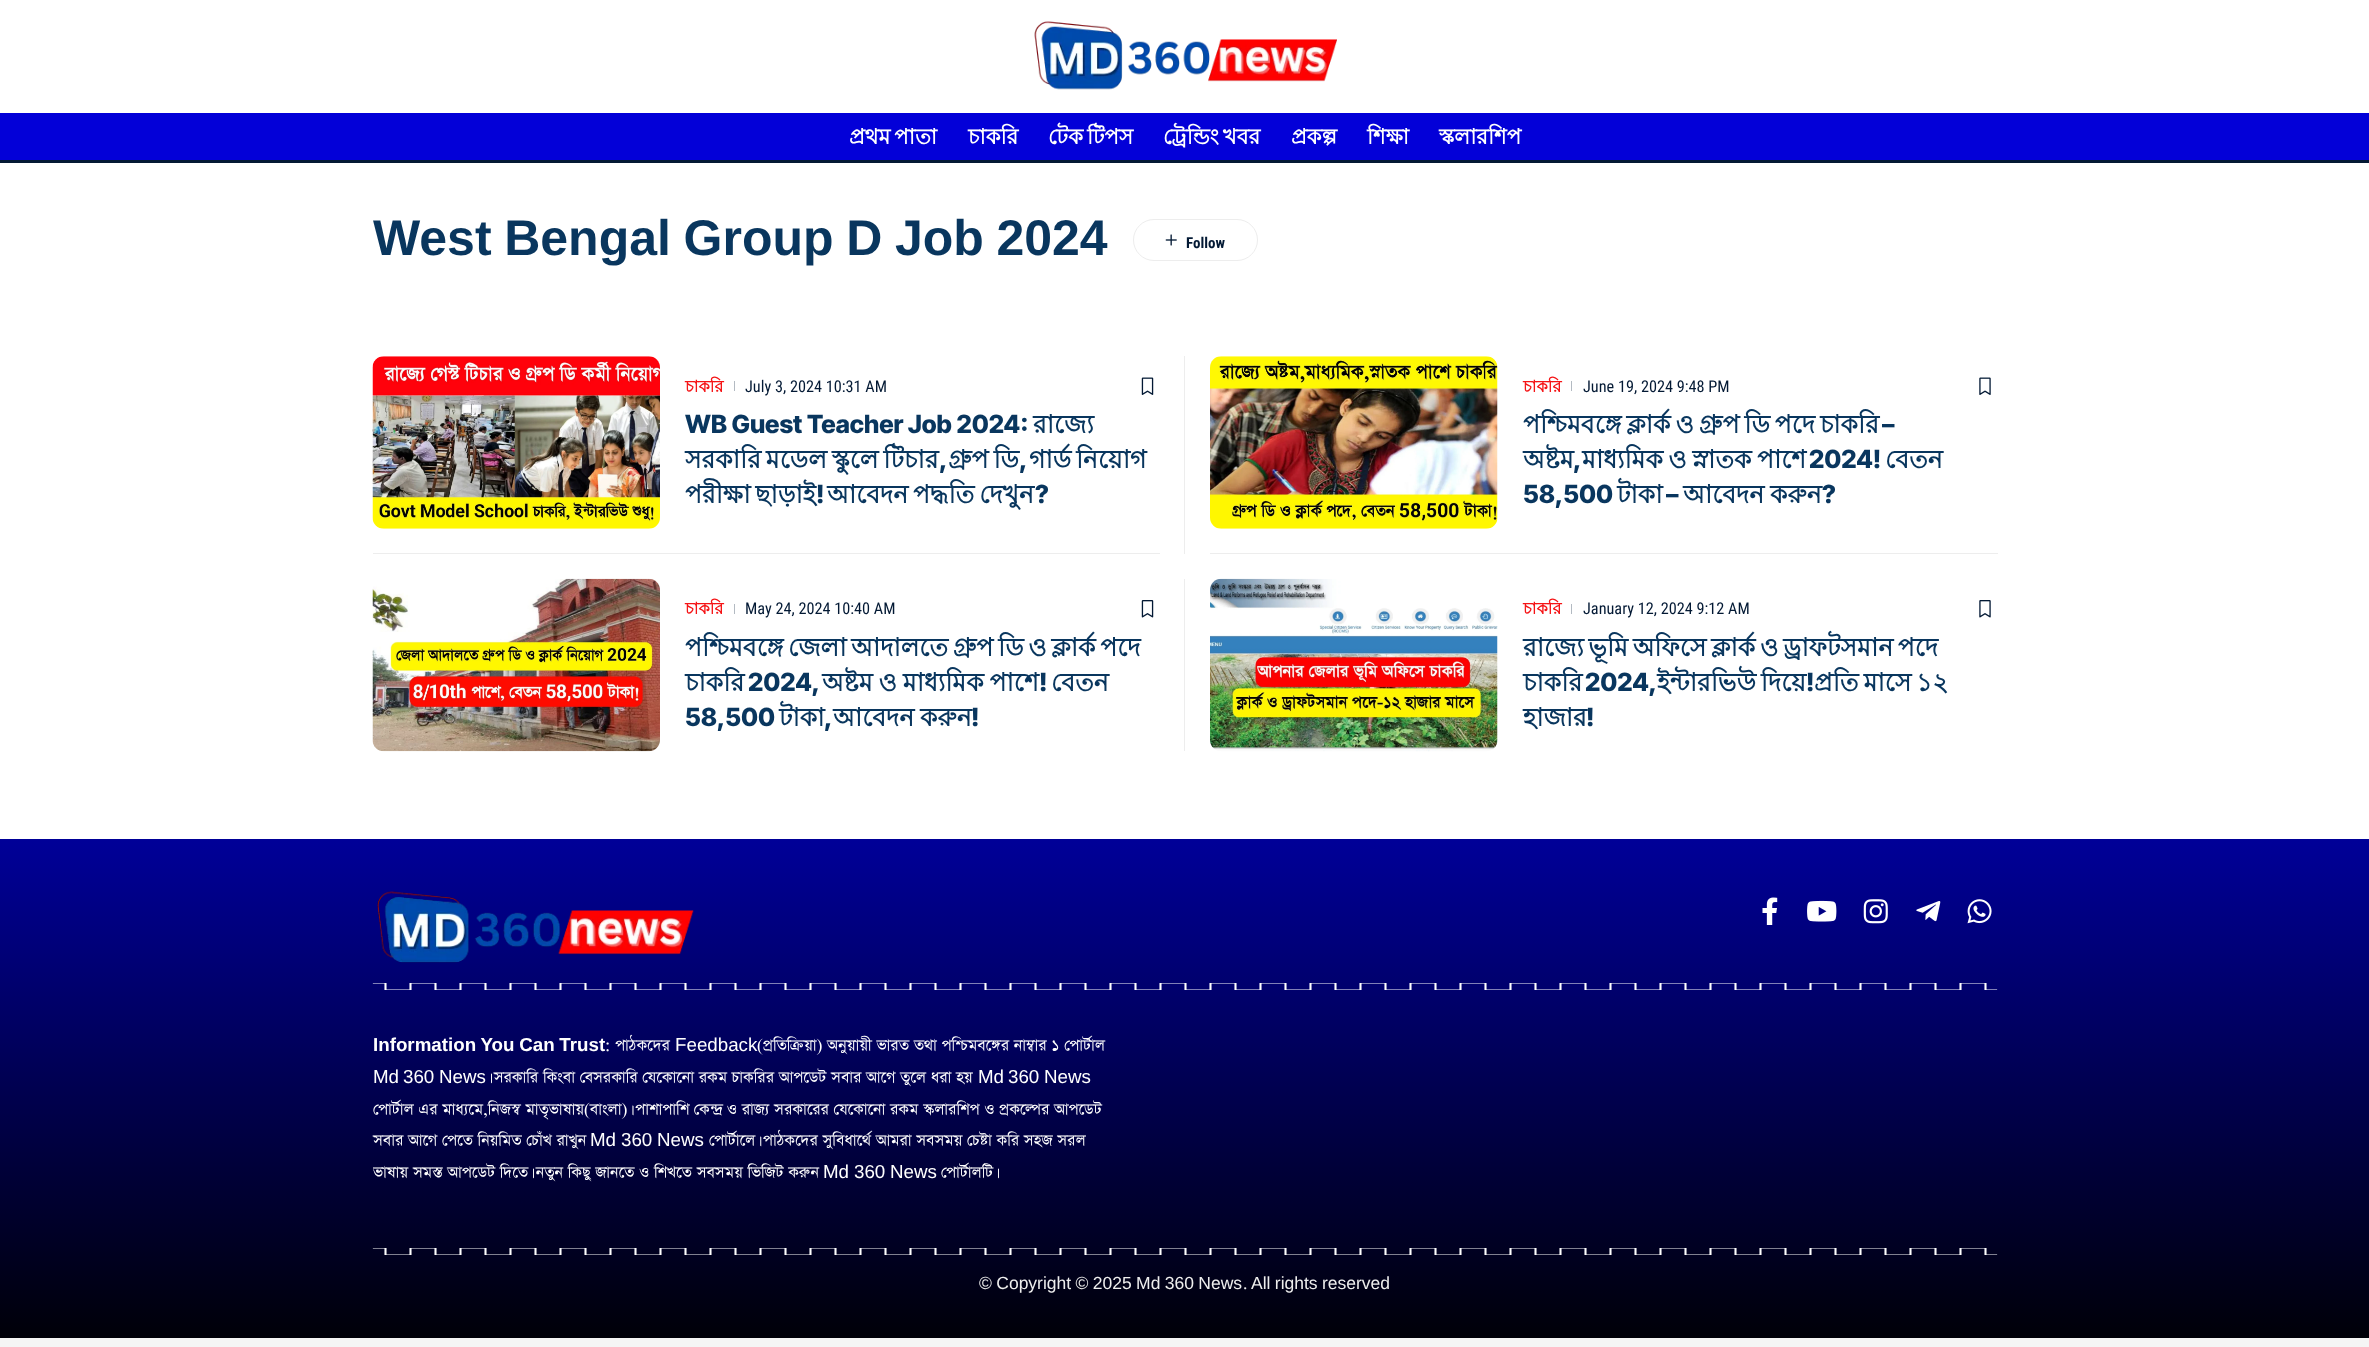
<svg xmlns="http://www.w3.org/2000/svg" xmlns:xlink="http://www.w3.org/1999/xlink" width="2369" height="1347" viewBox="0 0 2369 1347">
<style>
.cls-1{font:bold 21.25px Lohit Bengali;fill:#ffffff}
.cls-2{font:bold 50px Liberation Sans;fill:#09365e}
.cls-3{font:bold 15px Roboto Condensed;fill:#031934}
.cls-4{font:bold 16.25px Lohit Bengali;fill:#f51416}
.cls-5{font:16.25px Roboto Condensed;fill:#031934}
.cls-6{font:800 25px Inter Tight;fill:#09365e}
.cls-7{font:bold 25px Lohit Bengali;fill:#09365e}
.cls-8{font:bold 18.75px Liberation Sans;fill:#ffffff}
.cls-9{font:18.75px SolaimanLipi;fill:#ffffff}
.cls-10{font:18.75px Liberation Sans;fill:#ffffff}
.cls-11{font:17.5px Liberation Sans;fill:#eeeeee}
.cls-12{font:17.5px SolaimanLipi;fill:#eeeeee}
</style>
<defs>
<linearGradient id="g1" gradientUnits="userSpaceOnUse" x1="1185" y1="839" x2="1185" y2="1338"><stop offset="0" stop-color="#000098"/><stop offset="1" stop-color="#000008"/></linearGradient>
<clipPath id="clip1"><rect x="373" y="1030" width="747" height="178"/></clipPath>
</defs>
<rect width="100%" height="100%" fill="#ffffff"/>
<image xlink:href="image0.png" x="1034" y="21" width="303" height="69"/>
<rect fill="#0300d8" x="0" y="113" width="2369" height="47"/>
<rect fill="#031934" x="0" y="160" width="2369" height="3"/>
<rect fill="none" stroke="#ededed" x="1133.5" y="219.5" width="124" height="41" rx="20.5"/>
<image xlink:href="image1.png" x="1165" y="234" width="12" height="12"/>
<image xlink:href="image2.png" x="372" y="356" width="288" height="173"/>
<rect fill="#b3bac2" x="734" y="381" width="1" height="10"/>
<image xlink:href="image3.png" x="1141" y="377" width="13" height="18"/>
<rect fill="#ededed" x="1184" y="356" width="1" height="198"/>
<rect fill="#ededed" x="373" y="553" width="787" height="1"/>
<image xlink:href="image4.png" x="1210" y="356" width="288" height="173"/>
<rect fill="#b3bac2" x="1571" y="381" width="1" height="10"/>
<image xlink:href="image5.png" x="1979" y="377" width="12" height="18"/>
<rect fill="#ededed" x="1210" y="553" width="788" height="1"/>
<image xlink:href="image6.png" x="372" y="578" width="288" height="174"/>
<rect fill="#b3bac2" x="734" y="604" width="1" height="10"/>
<image xlink:href="image7.png" x="1141" y="600" width="13" height="18"/>
<rect fill="#ededed" x="1184" y="579" width="1" height="172"/>
<image xlink:href="image8.png" x="1210" y="578" width="288" height="174"/>
<rect fill="#b3bac2" x="1571" y="604" width="1" height="10"/>
<image xlink:href="image9.png" x="1979" y="600" width="12" height="18"/>
<rect fill="url(#g1)" x="0" y="839" width="2369" height="499"/>
<image xlink:href="image10.png" x="377" y="891" width="317" height="72"/>
<image xlink:href="image11.png" x="1762" y="897" width="16" height="28"/>
<image xlink:href="image12.png" x="1807" y="900" width="30" height="22"/>
<image xlink:href="image13.png" x="1863" y="899" width="25" height="25"/>
<image xlink:href="image14.png" x="1916" y="901" width="25" height="21"/>
<image xlink:href="image15.png" x="1967" y="899" width="25" height="25"/>
<image xlink:href="image16.png" x="372" y="983" width="1626" height="7"/>
<image xlink:href="image17.png" x="372" y="1248" width="1626" height="7"/>
<rect fill="#f5f5f5" x="0" y="1338" width="2369" height="9"/>
<text class="cls-1" x="849" y="144" word-spacing="-2">প্রথম পাতা</text>
<text class="cls-1" x="968" y="144">চাকরি</text>
<text class="cls-1" x="1048" y="144" word-spacing="-2">টেক টিপস</text>
<text class="cls-1" x="1163" y="144" word-spacing="-2">ট্রেন্ডিং খবর</text>
<text class="cls-1" x="1291" y="144">প্রকল্প</text>
<text class="cls-1" x="1367" y="144">শিক্ষা</text>
<text class="cls-1" x="1439" y="144">স্কলারশিপ</text>
<text class="cls-2" x="373" y="255" word-spacing="-1.25">West Bengal Group D Job 2024</text>
<text class="cls-3" x="1186" y="248">Follow</text>
<text class="cls-4" x="685" y="392">চাকরি</text>
<text class="cls-5" x="745" y="392">July 3, 2024 10:31 AM</text>
<text class="cls-6" x="685" y="433">WB Guest Teacher Job 2024:</text>
<text class="cls-7" x="1033" y="433">রাজ্যে</text>
<text class="cls-7" x="685" y="468" word-spacing="-2">সরকারি মডেল স্কুলে টিচার</text>
<text class="cls-6" x="939" y="468">,</text>
<text class="cls-7" x="948" y="468" word-spacing="-2">গ্রুপ ডি</text>
<text class="cls-6" x="1019" y="468">,</text>
<text class="cls-7" x="1029" y="468" word-spacing="-2">গার্ড নিয়োগ</text>
<text class="cls-7" x="685" y="503" word-spacing="-2">পরীক্ষা ছাড়াই</text>
<text class="cls-6" x="816" y="503">!</text>
<text class="cls-7" x="827" y="503" word-spacing="-2">আবেদন পদ্ধতি দেখুন</text>
<text class="cls-6" x="1035" y="503">?</text>
<text class="cls-4" x="1523" y="392">চাকরি</text>
<text class="cls-5" x="1583" y="392">June 19, 2024 9:48 PM</text>
<text class="cls-7" x="1523" y="433" word-spacing="-2">পশ্চিমবঙ্গে ক্লার্ক ও গ্রুপ ডি পদে চাকরি</text>
<text class="cls-6" x="1882" y="433">–</text>
<text class="cls-7" x="1523" y="468">অষ্টম</text>
<text class="cls-6" x="1573" y="468">,</text>
<text class="cls-7" x="1582" y="468" word-spacing="-1.5">মাধ্যমিক ও স্নাতক পাশে</text>
<text class="cls-6" x="1809" y="468">2024!</text>
<text class="cls-7" x="1885" y="468">বেতন</text>
<text class="cls-6" x="1523" y="503">58,500</text>
<text class="cls-7" x="1617" y="503">টাকা</text>
<text class="cls-6" x="1666" y="503">–</text>
<text class="cls-7" x="1683" y="503" word-spacing="-1">আবেদন করুন</text>
<text class="cls-6" x="1822" y="503">?</text>
<text class="cls-4" x="685" y="614">চাকরি</text>
<text class="cls-5" x="745" y="614">May 24, 2024 10:40 AM</text>
<text class="cls-7"><tspan x="685" y="656" word-spacing="-2.25">পশ্চিমবঙ্গে জেলা আদালতে গ্রুপ ডি ও ক্লার্ক পদে</tspan><tspan x="685" y="691">চাকরি</tspan></text>
<text class="cls-6" x="748" y="691">2024,</text>
<text class="cls-7" x="822" y="691" word-spacing="-1">অষ্টম ও মাধ্যমিক পাশে</text>
<text class="cls-6" x="1039" y="691">!</text>
<text class="cls-7" x="1051" y="691">বেতন</text>
<text class="cls-6" x="685" y="726">58,500</text>
<text class="cls-7" x="779" y="726">টাকা</text>
<text class="cls-6" x="824" y="726">,</text>
<text class="cls-7" x="833" y="726" word-spacing="-1">আবেদন করুন</text>
<text class="cls-6" x="971" y="726">!</text>
<text class="cls-4" x="1523" y="614">চাকরি</text>
<text class="cls-5" x="1583" y="614">January 12, 2024 9:12 AM</text>
<text class="cls-7"><tspan x="1523" y="656" word-spacing="-2.25">রাজ্যে ভূমি অফিসে ক্লার্ক ও ড্রাফটসমান পদে</tspan><tspan x="1523" y="691">চাকরি</tspan></text>
<text class="cls-6" x="1585" y="691">2024,</text>
<text class="cls-7" x="1657" y="691" word-spacing="-2">ইন্টারভিউ দিয়ে</text>
<text class="cls-6" x="1806" y="691">!</text>
<text class="cls-7" x="1814" y="691" word-spacing="-2">প্রতি মাসে ১২</text>
<text class="cls-7" x="1523" y="726">হাজার</text>
<text class="cls-6" x="1586" y="726">!</text>
<text class="cls-8" x="373" y="1051" word-spacing="-0.5">Information You Can Trust</text>
<text class="cls-9" x="605" y="1051">:</text>
<text class="cls-9" x="615" y="1051">পাঠকদের</text>
<text class="cls-10" x="675" y="1051">Feedback</text>
<text class="cls-9" x="757" y="1051">(প্রতিক্রিয়া) অনুয়ায়ী ভারত তথা পশ্চিমবঙ্গের নাম্বার ১ পোর্টাল</text>
<text class="cls-10" x="373" y="1083">Md</text>
<text class="cls-10" x="403" y="1083">360</text>
<text class="cls-10" x="439" y="1083">News</text>
<text class="cls-9" x="486" y="1083">। সরকারি কিংবা বেসরকারি যেকোনো রকম চাকরির আপডেট সবার আগে তুলে ধরা হয়</text>
<text class="cls-10" x="978" y="1083">Md</text>
<text class="cls-10" x="1008" y="1083">360</text>
<text class="cls-10" x="1044" y="1083">News</text>
<g clip-path="url(#clip1)">
<text class="cls-9" x="373" y="1115">পোর্টাল এর মাধ্যমে,নিজস্ব মাতৃভাষায়(বাংলা)। পাশাপাশি কেন্দ্র ও রাজ্য সরকারের যেকোনো রকম স্কলারশিপ ও প্রকল্পের আপডেট</text>
</g>
<text class="cls-9" x="373" y="1146">সবার আগে পেতে নিয়মিত চোঁখ রাখুন</text>
<text class="cls-10" x="590" y="1146">Md</text>
<text class="cls-10" x="621" y="1146">360</text>
<text class="cls-10" x="657" y="1146">News</text>
<text class="cls-9" x="709" y="1146">পোর্টালে। পাঠকদের সুবিধার্থে আমরা সবসময় চেষ্টা করি সহজ সরল</text>
<g clip-path="url(#clip1)">
<text class="cls-9" x="373" y="1178">ভাষায় সমস্ত আপডেট দিতে। নতুন কিছু জানতে ও শিখতে সবসময় ভিজিট করুন</text>
</g>
<text class="cls-10" x="823" y="1178">Md</text>
<text class="cls-10" x="854" y="1178">360</text>
<text class="cls-10" x="890" y="1178">News</text>
<text class="cls-9" x="941" y="1178">পোর্টালটি।</text>
<text class="cls-11" x="979" y="1289" word-spacing="-0.5">© Copyright © 2025 Md 360 News</text>
<text class="cls-12" x="1243" y="1289">.</text>
<text class="cls-11" x="1251" y="1289" word-spacing="-0.5">All rights reserved</text>
</svg>
